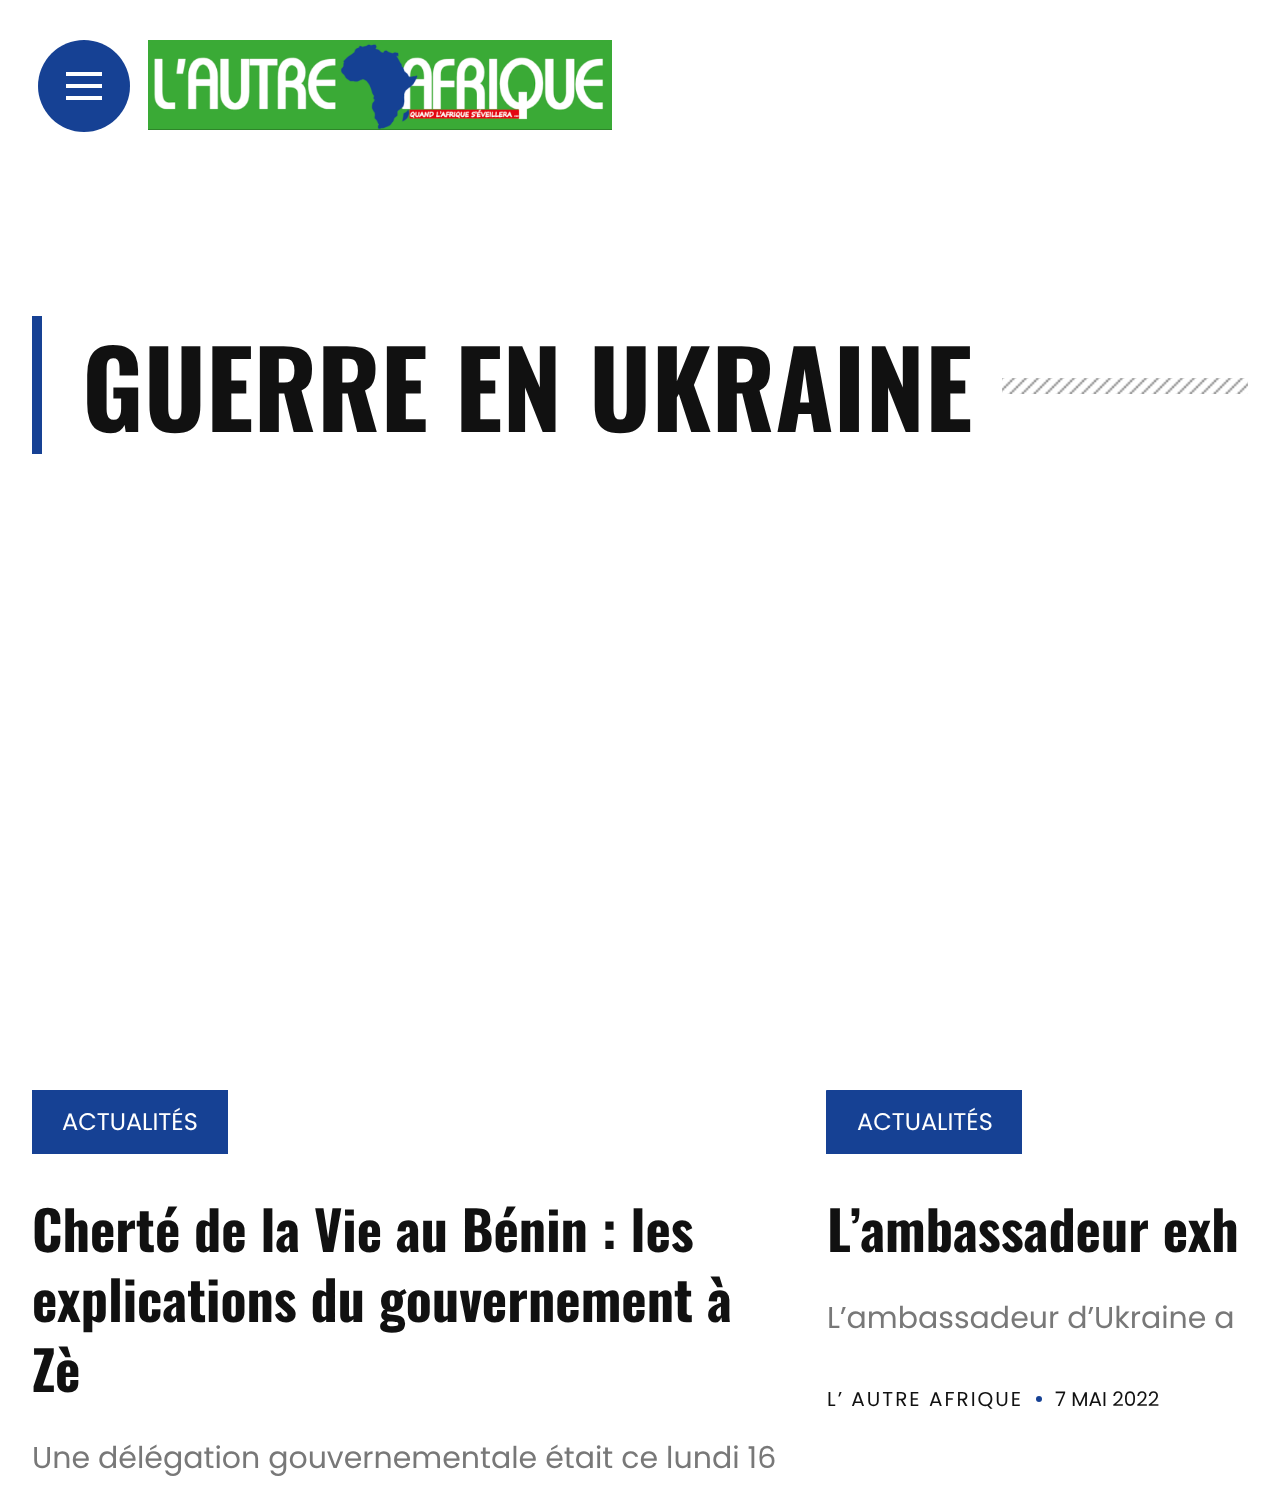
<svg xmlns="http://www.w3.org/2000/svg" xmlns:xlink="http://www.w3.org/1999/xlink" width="1279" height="1491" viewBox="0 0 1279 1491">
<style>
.cls-1{font:bold 106px Oswald;fill:#111111}
.cls-2{font:24px Poppins;fill:#ffffff}
.cls-3{font:bold 54px Oswald;fill:#111111}
.cls-4{font:30px Poppins;fill:#787878}
.cls-5{font:20px Poppins;letter-spacing:2px;fill:#111111}
.cls-6{font:20px Poppins;fill:#111111}
</style>
<defs>
<clipPath id="clip1"><rect x="826" y="1090" width="196" height="64"/></clipPath>
</defs>
<rect width="100%" height="100%" fill="#ffffff"/>
<circle fill="#164194" cx="84" cy="86" r="46"/>
<rect fill="#ffffff" x="66" y="72" width="36" height="4"/>
<rect fill="#ffffff" x="66" y="84" width="36" height="4"/>
<rect fill="#ffffff" x="66" y="96" width="36" height="4"/>
<image xlink:href="image0.png" x="148" y="40" width="464" height="90"/>
<rect fill="#164194" x="32" y="316" width="10" height="138"/>
<image xlink:href="image1.png" x="1002" y="378" width="246" height="16"/>
<rect fill="#164194" x="32" y="1090" width="196" height="64"/>
<rect fill="#164194" x="826" y="1090" width="196" height="64"/>
<g clip-path="url(#clip1)">
<path fill="#8ba0ca" d="M775 989L857 1047L679 1300L597 1243Z"/>
</g>
<circle fill="#164194" cx="1039" cy="1399" r="3"/>
<text class="cls-1" x="82" y="432">GUERRE EN UKRAINE</text>
<text class="cls-2" x="62" y="1130">ACTUALITÉS</text>
<text class="cls-3"><tspan x="32" y="1252">Cherté de la Vie au Bénin : les</tspan><tspan x="32" y="1322">explications du gouvernement à</tspan><tspan x="32" y="1392">Zè</tspan></text>
<text class="cls-4" x="32" y="1468">Une délégation gouvernementale était ce lundi 16</text>
<text class="cls-2" x="857" y="1130">ACTUALITÉS</text>
<text class="cls-3" x="827" y="1252">L’ambassadeur exh</text>
<text class="cls-4" x="827" y="1328">L’ambassadeur d’Ukraine a</text>
<text class="cls-5" x="827" y="1406">L’ AUTRE AFRIQUE</text>
<text class="cls-6" x="1055" y="1406">7 MAI 2022</text>
</svg>
